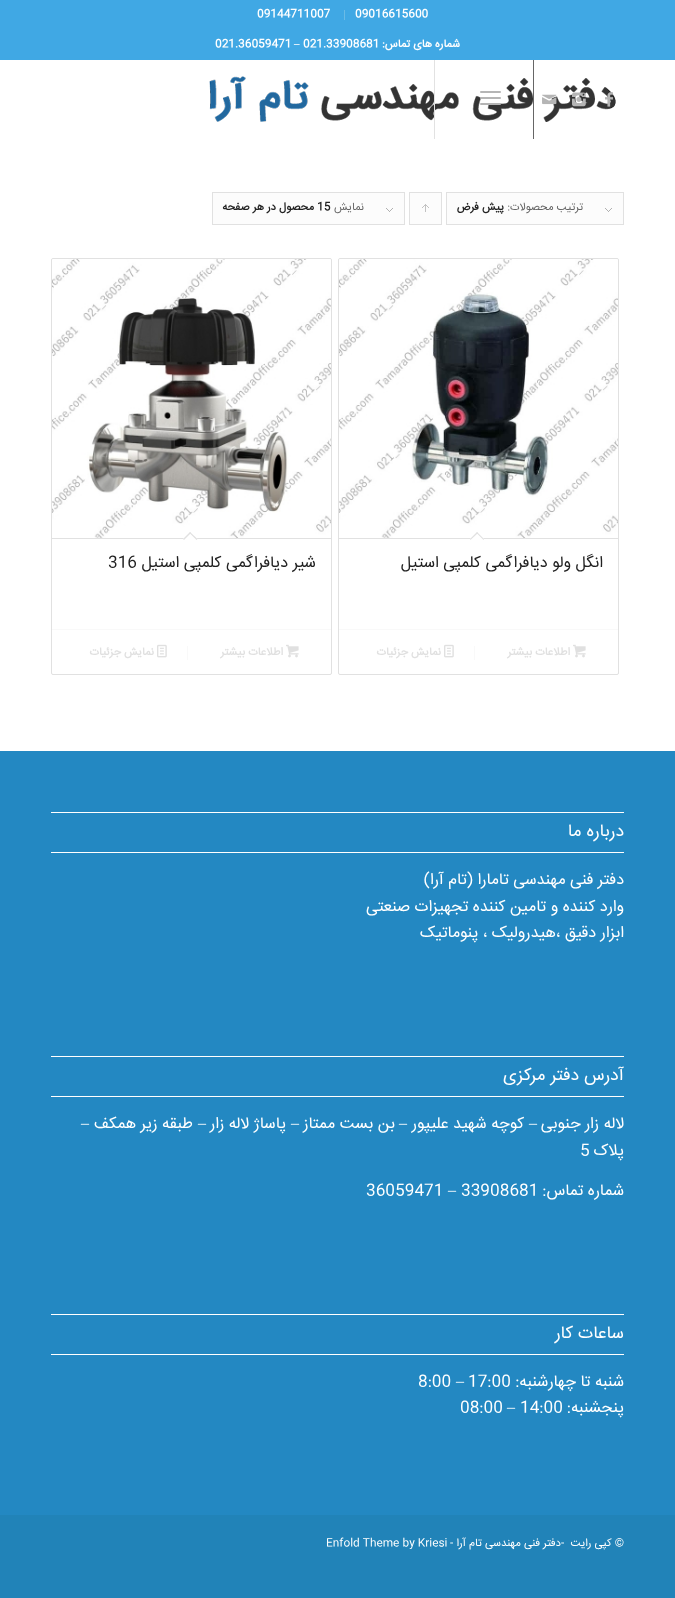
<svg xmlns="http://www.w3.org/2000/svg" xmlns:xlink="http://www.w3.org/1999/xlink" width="675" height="1598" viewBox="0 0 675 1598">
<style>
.cls-1{font:bold 11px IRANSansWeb;fill:#ffffff}
.cls-2{font:bold 11px IRANSansWeb;direction:rtl;fill:#ffffff}
.cls-3{font:bold 11px Liberation Serif;fill:#ffffff}
.cls-4{font:11px IRANSansWeb;direction:rtl;fill:#666666}
.cls-5{font:bold 11px IRANSansWeb;direction:rtl;fill:#222222}
.cls-6{font:bold 11px IRANSansWeb;fill:#222222}
.cls-7{font:16px IRANSansWeb;direction:rtl;fill:#222222}
.cls-8{font:bold 11px IRANSansWeb;direction:rtl;fill:#e0e0e0}
.cls-9{font:16px IRANSansWeb;fill:#222222}
.cls-10{font:17.5px IRANSansWeb;direction:rtl;fill:#ffffff}
.cls-11{font:16px IRANSansWeb;direction:rtl;fill:#ffffff}
.cls-12{font:16px Liberation Serif;direction:rtl;fill:#ffffff}
.cls-13{font:16px IRANSansWeb;fill:#ffffff}
.cls-14{font:16px Liberation Serif;fill:#ffffff}
.cls-15{font:11px IRANSansWeb;direction:rtl;fill:#ffffff}
.cls-16{font:11px IRANSansWeb;fill:#ffffff}
</style>
<rect width="100%" height="100%" fill="#2183b8"/>
<rect fill="#ffffff" x="0" y="60" width="675" height="691"/>
<image xlink:href="image3.png" x="209" y="76" width="407" height="46"/>
<rect fill="#666666" x="533" y="59" width="1" height="80"/>
<rect fill="#e2e2e2" x="434" y="59" width="1" height="80"/>
<rect fill="#40a8e4" x="0" y="0" width="675" height="60"/>
<rect fill="#6abbe6" x="344" y="10" width="1" height="10"/>
<image xlink:href="image0.png" x="605" y="92" width="8" height="15"/>
<image xlink:href="image1.png" x="572" y="92" width="14" height="15"/>
<image xlink:href="image2.png" x="542" y="94" width="15" height="11"/>
<rect fill="#b5b5b5" x="480" y="97" width="21" height="2" rx="1"/>
<rect fill="#b5b5b5" x="480" y="91" width="21" height="2" rx="1"/>
<rect fill="#b5b5b5" x="480" y="103" width="21" height="2" rx="1"/>
<rect fill="#fcfcfc" x="447" y="193" width="176" height="31"/>
<image xlink:href="image4.png" x="605" y="208" width="7" height="4"/>
<rect fill="none" stroke="#e1e1e1" x="446.5" y="192.5" width="177" height="32"/>
<rect fill="#fcfcfc" x="410" y="193" width="31" height="31"/>
<image xlink:href="image5.png" x="422" y="204" width="7" height="8"/>
<rect fill="none" stroke="#e1e1e1" x="409.5" y="192.5" width="32" height="32"/>
<rect fill="#fcfcfc" x="213" y="193" width="191" height="31"/>
<image xlink:href="image4.png" x="386" y="208" width="7" height="4"/>
<rect fill="none" stroke="#e1e1e1" x="212.5" y="192.5" width="192" height="32"/>
<rect fill="none" stroke="#e1e1e1" x="338.5" y="258.5" width="280" height="416" rx="1.5"/>
<image xlink:href="image6.png" x="339" y="259" width="279" height="279"/>
<rect fill="#e1e1e1" x="339" y="538" width="279" height="1"/>
<path fill="#ffffff" d="M477 532L484 539L477 546L470 539Z"/>
<path fill="#e1e1e1" d="M477 532L484 539L483.5 540L476.5 533Z"/>
<path fill="#e1e1e1" d="M477 532L478 533L470.5 540L470 539Z"/>
<rect fill="#f9f9f9" x="339" y="629" width="279" height="1"/>
<image xlink:href="image7.png" x="573" y="644" width="13" height="14"/>
<rect fill="#f9f9f9" x="474" y="646" width="1" height="14"/>
<image xlink:href="image8.png" x="444" y="644" width="10" height="14"/>
<rect fill="none" stroke="#e1e1e1" x="51.5" y="258.5" width="280" height="416" rx="1.5"/>
<image xlink:href="image9.png" x="52" y="259" width="279" height="279"/>
<rect fill="#e1e1e1" x="52" y="538" width="279" height="1"/>
<path fill="#ffffff" d="M190 532L197.5 539L190 546L183 539Z"/>
<path fill="#e1e1e1" d="M190 532L197.5 539L196.5 540L189.5 533Z"/>
<path fill="#e1e1e1" d="M190 532L191 533L184 540L183 539Z"/>
<rect fill="#f9f9f9" x="52" y="629" width="279" height="1"/>
<image xlink:href="image7.png" x="286" y="644" width="13" height="14"/>
<rect fill="#f9f9f9" x="187" y="646" width="1" height="14"/>
<image xlink:href="image8.png" x="157" y="644" width="10" height="14"/>
<rect fill="#2388c2" x="0" y="751" width="675" height="764"/>
<rect fill="#ffffff" x="51" y="812" width="573" height="1"/>
<rect fill="#ffffff" x="51" y="852" width="573" height="1"/>
<rect fill="#ffffff" x="51" y="1056" width="573" height="1"/>
<rect fill="#ffffff" x="51" y="1096" width="573" height="1"/>
<rect fill="#ffffff" x="51" y="1314" width="573" height="1"/>
<rect fill="#ffffff" x="51" y="1354" width="573" height="1"/>
<text class="cls-1" x="355" y="17">09016615600</text>
<text class="cls-1" x="257" y="17">09144711007</text>
<text class="cls-2" x="460" y="47">شماره های تماس:</text>
<text class="cls-1" x="303" y="47">021.33908681</text>
<text class="cls-3" x="294" y="47">–</text>
<text class="cls-1" x="215" y="47">021.36059471</text>
<text class="cls-4" x="583" y="210">ترتیب محصولات:</text>
<text class="cls-5" x="504" y="210">پیش فرض</text>
<text class="cls-4" x="364" y="210">نمایش</text>
<text class="cls-6" x="317" y="210">15</text>
<text class="cls-5" x="314" y="210">محصول در هر صفحه</text>
<text class="cls-7" x="603" y="567">انگل ولو دیافراگمی کلمپی استیل</text>
<text class="cls-8" x="570" y="655">اطلاعات بیشتر</text>
<text class="cls-8" x="441" y="655">نمایش جزئیات</text>
<text class="cls-7" x="316" y="567">شیر دیافراگمی کلمپی استیل</text>
<text class="cls-9" x="108" y="567">316</text>
<text class="cls-8" x="283" y="655">اطلاعات بیشتر</text>
<text class="cls-8" x="154" y="655">نمایش جزئیات</text>
<text class="cls-10" x="624" y="836">درباره ما</text>
<text class="cls-11"><tspan x="624" y="884">دفتر فنی مهندسی تامارا (تام آرا)</tspan><tspan x="624" y="911">وارد کننده و تامین کننده تجهیزات صنعتی</tspan><tspan x="624" y="937">ابزار دقیق ،هیدرولیک ، پنوماتیک</tspan></text>
<text class="cls-10" x="624" y="1080">آدرس دفتر مرکزی</text>
<text class="cls-11" x="624" y="1128">لاله زار جنوبی</text>
<text class="cls-12" x="537" y="1128">–</text>
<text class="cls-11" x="524" y="1128">کوچه شهید علیپور</text>
<text class="cls-12" x="407" y="1128">–</text>
<text class="cls-11" x="395" y="1128">بن بست ممتاز</text>
<text class="cls-12" x="299" y="1128">–</text>
<text class="cls-11" x="286" y="1128">پاساژ لاله زار</text>
<text class="cls-12" x="206" y="1128">–</text>
<text class="cls-11" x="193" y="1128">طبقه زیر همکف</text>
<text class="cls-12" x="89" y="1128">–</text>
<text class="cls-11" x="624" y="1155">پلاک</text>
<text class="cls-13" x="580" y="1155">5</text>
<text class="cls-11" x="624" y="1195">شماره تماس:</text>
<text class="cls-13" x="461" y="1195">33908681</text>
<text class="cls-14" x="448" y="1195">–</text>
<text class="cls-13" x="366" y="1195">36059471</text>
<text class="cls-10" x="624" y="1338">ساعات کار</text>
<text class="cls-11" x="624" y="1386">شنبه تا چهارشنبه:</text>
<text class="cls-13" x="468" y="1386">17:00</text>
<text class="cls-14" x="456" y="1386">–</text>
<text class="cls-13" x="418" y="1386">8:00</text>
<text class="cls-11" x="624" y="1412">پنجشنبه:</text>
<text class="cls-13" x="520" y="1412">14:00</text>
<text class="cls-14" x="507" y="1412">–</text>
<text class="cls-13" x="460" y="1412">08:00</text>
<text class="cls-15" x="624" y="1546">© کپی رایت</text>
<text class="cls-16" x="561" y="1546">-</text>
<text class="cls-15" x="561" y="1546">دفتر فنی مهندسی تام آرا</text>
<text class="cls-16" x="450" y="1546">-</text>
<text class="cls-16" x="326" y="1546">Enfold Theme by Kriesi</text>
</svg>
